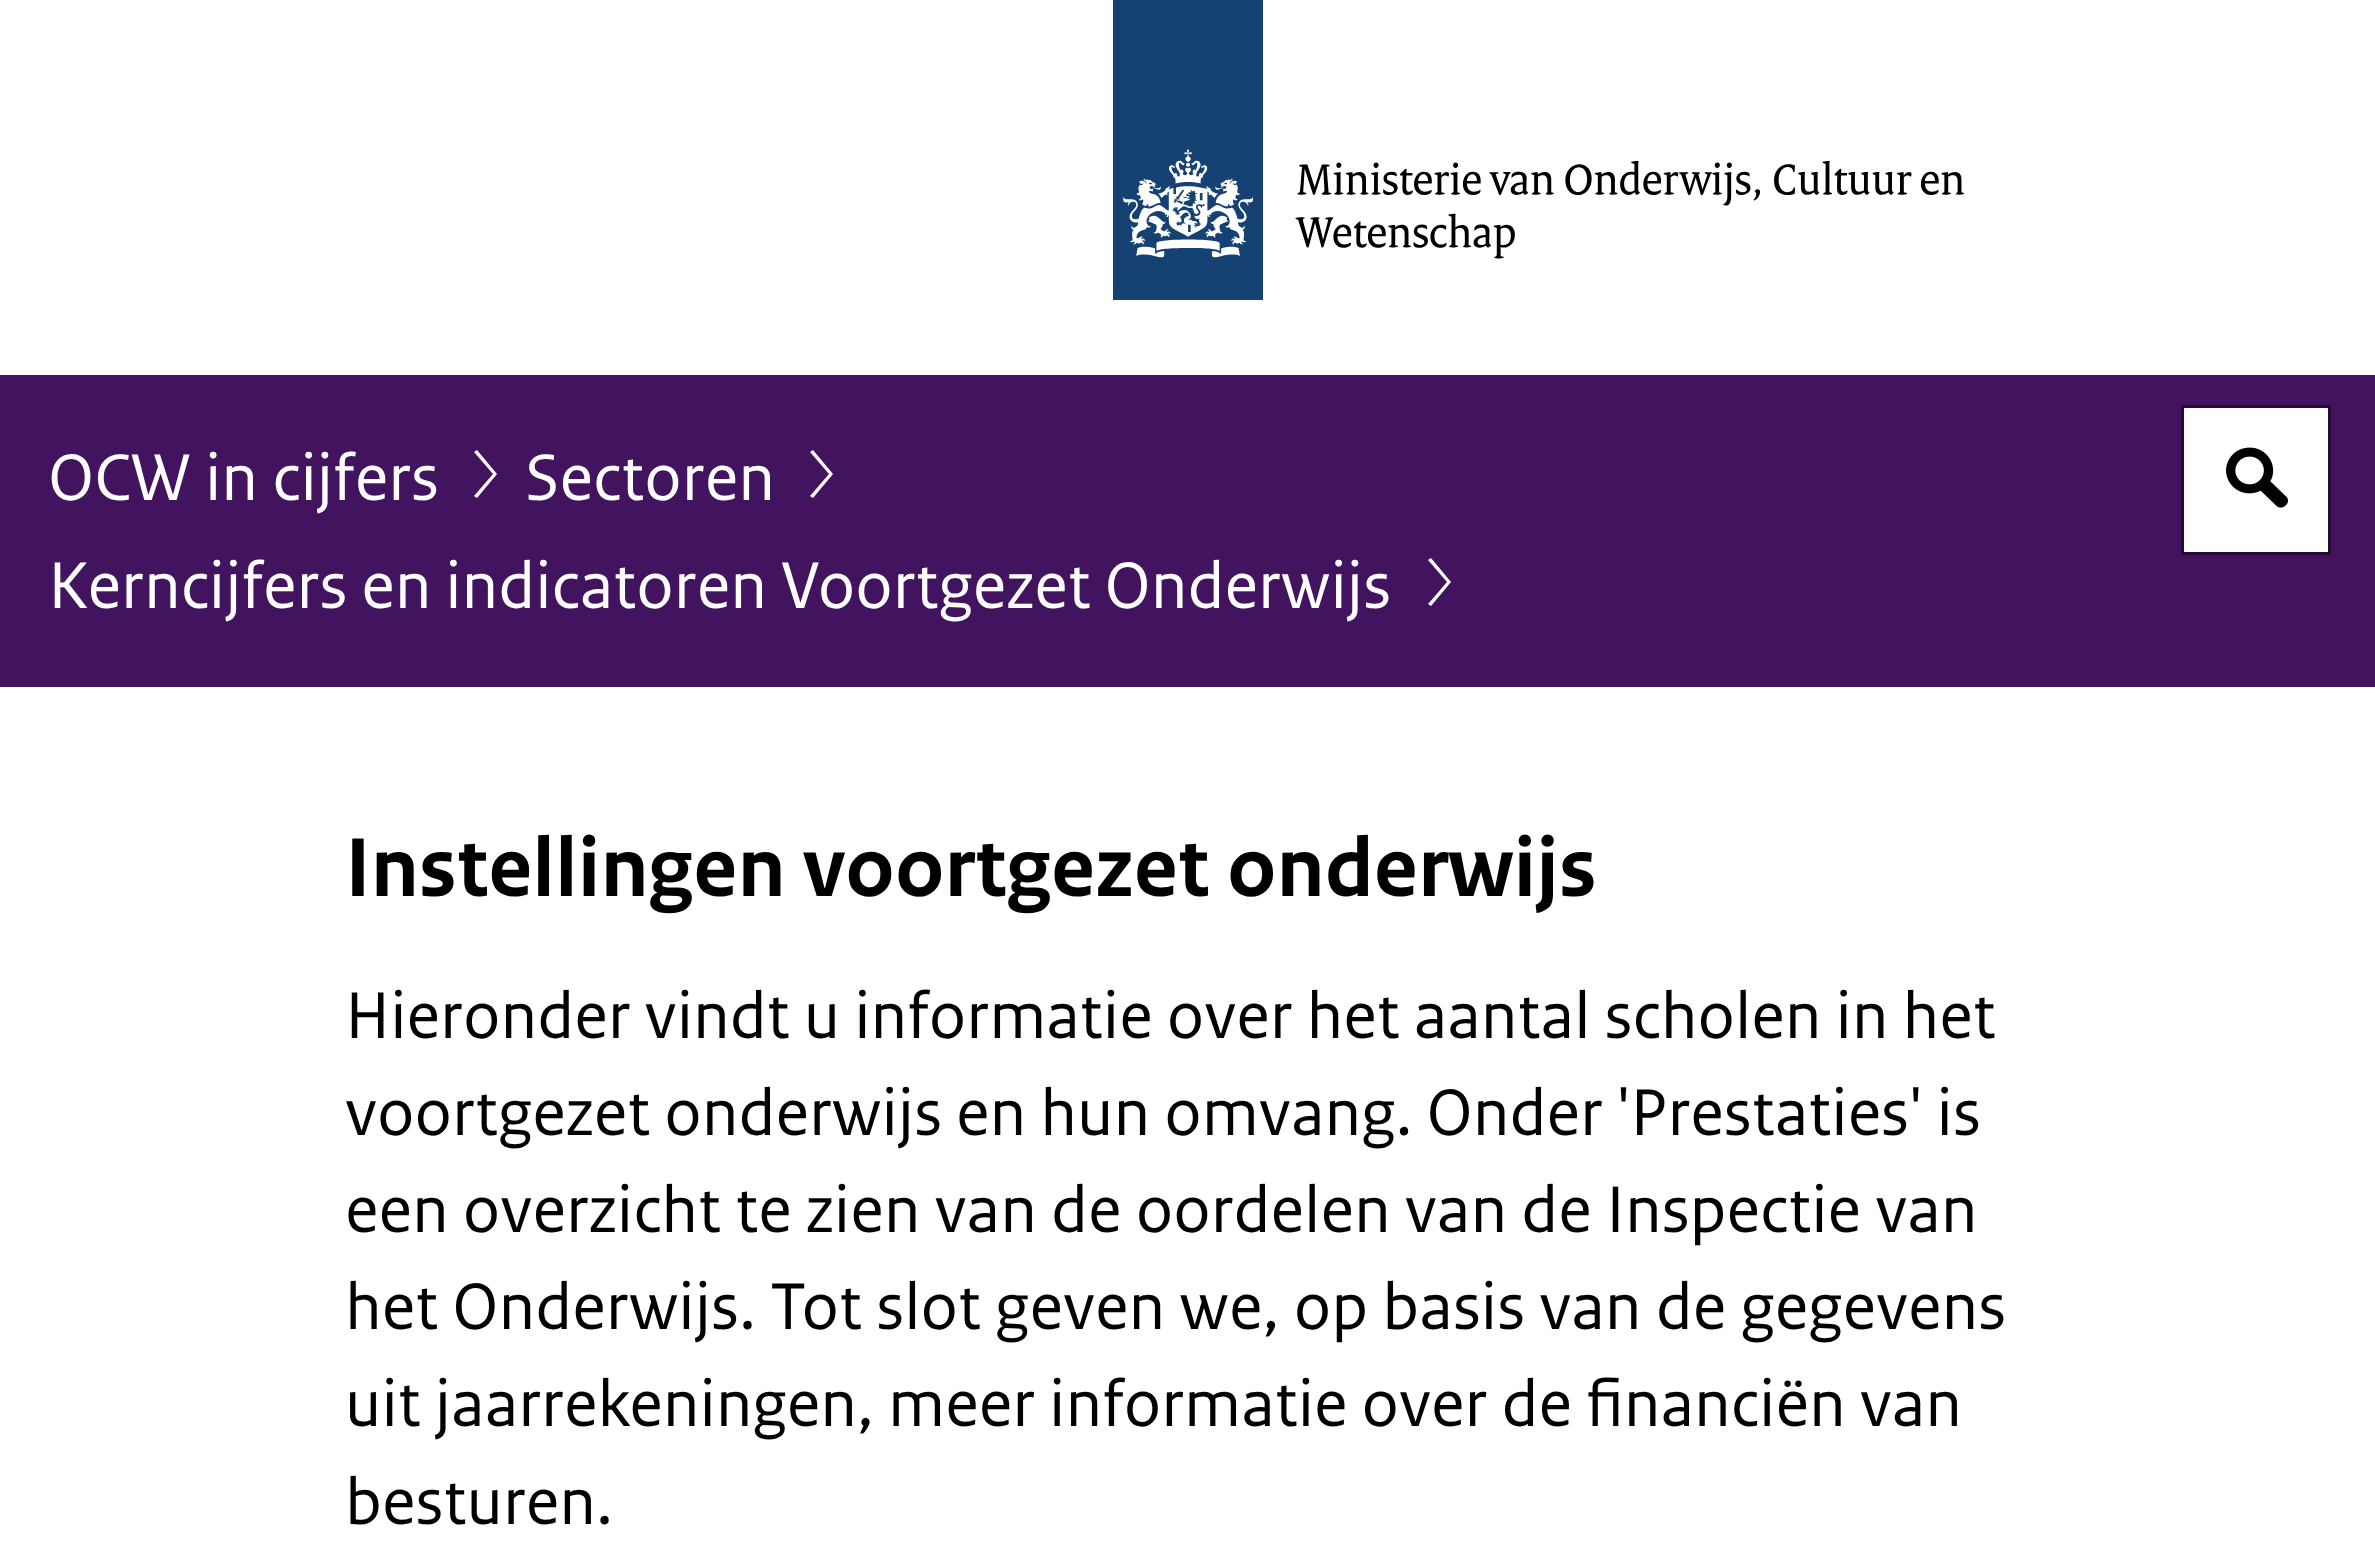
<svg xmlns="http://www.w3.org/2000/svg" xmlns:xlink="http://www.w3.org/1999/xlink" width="2375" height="1546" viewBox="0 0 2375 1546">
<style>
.cls-1{font:69.2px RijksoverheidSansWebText;fill:#ffffff}
.cls-2{font:bold 87.6px RijksoverheidSansWebText;fill:#000000}
.cls-3{font:69.2px RijksoverheidSansWebText;fill:#000000}
</style>
<rect width="100%" height="100%" fill="#ffffff"/>
<image xlink:href="image0.png" x="1113" y="0" width="851" height="300"/>
<rect fill="#42145f" x="0" y="375" width="2375" height="312"/>
<path fill="#ffffff" d="M477 498L474 496L493 474L474 452L477 450L497 474Z"/>
<path fill="#ffffff" d="M813 498L810 496L829 474L810 452L813 450L833 474Z"/>
<path fill="#ffffff" d="M1431 606L1428 604L1447 582L1428 560L1431 558L1451 582Z"/>
<rect fill="#ffffff" stroke="#250b35" stroke-width="3" x="2182.5" y="406.5" width="147" height="147"/>
<image xlink:href="image1.png" x="2226" y="447" width="62" height="61"/>
<text class="cls-1" x="48" y="500">OCW in cijfers</text>
<text class="cls-1" x="525" y="500">Sectoren</text>
<text class="cls-1" x="48" y="608" word-spacing="-0.5">Kerncijfers en indicatoren Voortgezet Onderwijs</text>
<text class="cls-2" x="345" y="896">Instellingen voortgezet onderwijs</text>
<text class="cls-3"><tspan x="345" y="1038" word-spacing="-0.25">Hieronder vindt u informatie over het aantal scholen in het</tspan><tspan x="345" y="1135" word-spacing="-0.25">voortgezet onderwijs en hun omvang. Onder 'Prestaties' is</tspan><tspan x="345" y="1232" word-spacing="-0.1">een overzicht te zien van de oordelen van de Inspectie van</tspan><tspan x="345" y="1329" word-spacing="-0.1">het Onderwijs. Tot slot geven we, op basis van de gegevens</tspan><tspan x="345" y="1426" word-spacing="-0.25">uit jaarrekeningen, meer informatie over de financiën van</tspan><tspan x="345" y="1524">besturen.</tspan></text>
</svg>
